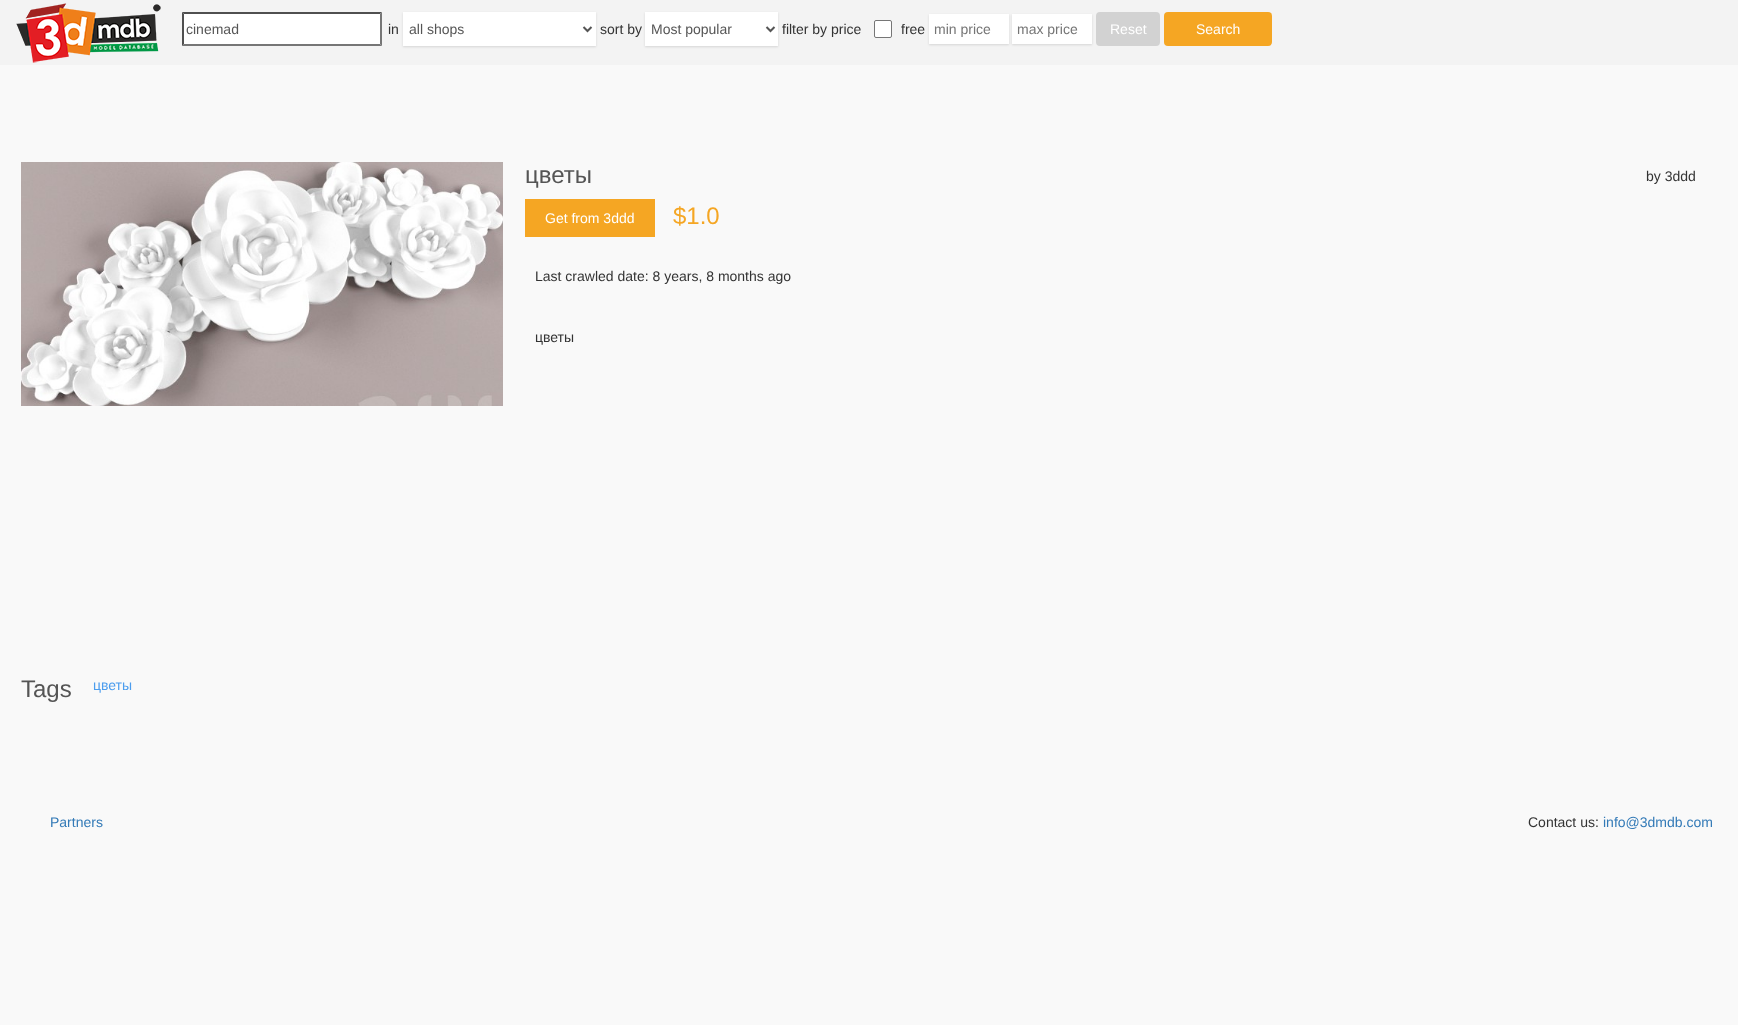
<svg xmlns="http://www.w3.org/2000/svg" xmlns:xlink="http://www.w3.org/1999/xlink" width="1738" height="1025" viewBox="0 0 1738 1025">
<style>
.cls-1{font:14px Liberation Sans;fill:#555555}
.cls-2{font:14px Liberation Sans;fill:#333333}
.cls-3{font:14px Liberation Sans;fill:#757575}
.cls-4{font:14px Liberation Sans;fill:#ffffff}
.cls-5{font:24px Liberation Sans;fill:#555555}
.cls-6{font:24px Liberation Sans;fill:#f5a623}
.cls-7{font:14px Liberation Sans;fill:#4c9dee}
.cls-8{font:14px Liberation Sans;fill:#337ab7}
</style>
<rect width="100%" height="100%" fill="#f9f9f9"/>
<rect fill="#f3f3f3" x="0" y="0" width="1738" height="65"/>
<image xlink:href="image0.png" x="16" y="3" width="145" height="60"/>
<rect fill="#ffffff" x="182" y="12" width="200" height="34"/>
<path fill="#4f4f4f" d="M182 12H382L380 14H184Z"/>
<path fill="#767676" d="M382 12V46L380 44V14Z"/>
<path fill="#767676" d="M382 46H182L184 44H380Z"/>
<path fill="#4f4f4f" d="M182 46V12L184 14V44Z"/>
<rect fill="#000000" fill-opacity="0.12" filter="blur(1px)" x="403" y="13" width="193" height="34"/>
<rect fill="#ffffff" x="403" y="12" width="193" height="34"/>
<path fill="none" stroke="#555555" stroke-width="2" d="M583.5 27L587.5 31L591.5 27"/>
<rect fill="#000000" fill-opacity="0.12" filter="blur(1px)" x="645" y="13" width="133" height="34"/>
<rect fill="#ffffff" x="645" y="12" width="133" height="34"/>
<path fill="none" stroke="#555555" stroke-width="2" d="M766.5 27L770.5 31L774.5 27"/>
<rect fill="#ffffff" stroke="#767676" x="874.5" y="20.5" width="17" height="17" rx="1.5"/>
<rect fill="#000000" fill-opacity="0.12" filter="blur(1px)" x="929" y="15" width="80" height="30"/>
<rect fill="#ffffff" x="929" y="14" width="80" height="30"/>
<rect fill="#000000" fill-opacity="0.12" filter="blur(1px)" x="1012" y="15" width="80" height="30"/>
<rect fill="#ffffff" x="1012" y="14" width="80" height="30"/>
<rect fill="#d2d2d2" x="1096" y="12" width="64" height="34" rx="4"/>
<rect fill="#f5a623" x="1164" y="12" width="108" height="34" rx="4"/>
<image xlink:href="image1.png" x="21" y="162" width="482" height="244"/>
<rect fill="#f5a623" x="525" y="199" width="130" height="38"/>
<text class="cls-1" x="186" y="34">cinemad</text>
<text class="cls-2" x="388" y="34">in</text>
<text class="cls-1" x="409" y="34">all shops</text>
<text class="cls-2" x="600" y="34">sort by</text>
<text class="cls-1" x="651" y="34">Most popular</text>
<text class="cls-2" x="782" y="34">filter by price</text>
<text class="cls-2" x="901" y="34">free</text>
<text class="cls-3" x="934" y="34">min price</text>
<text class="cls-3" x="1017" y="34">max price</text>
<text class="cls-4" x="1110" y="34">Reset</text>
<text class="cls-4" x="1196" y="34">Search</text>
<text class="cls-5" x="525" y="183">цветы</text>
<text class="cls-2" x="1646" y="181">by 3ddd</text>
<text class="cls-4" x="545" y="223">Get from 3ddd</text>
<text class="cls-6" x="673" y="224">$1.0</text>
<text class="cls-2" x="535" y="281">Last crawled date: 8 years, 8 months ago</text>
<text class="cls-2" x="535" y="342">цветы</text>
<text class="cls-5" x="21" y="697">Tags</text>
<text class="cls-7" x="93" y="690">цветы</text>
<text class="cls-8" x="50" y="827">Partners</text>
<text class="cls-2" x="1528" y="827">Contact us:</text>
<text class="cls-8" x="1603" y="827">info@3dmdb.com</text>
</svg>
